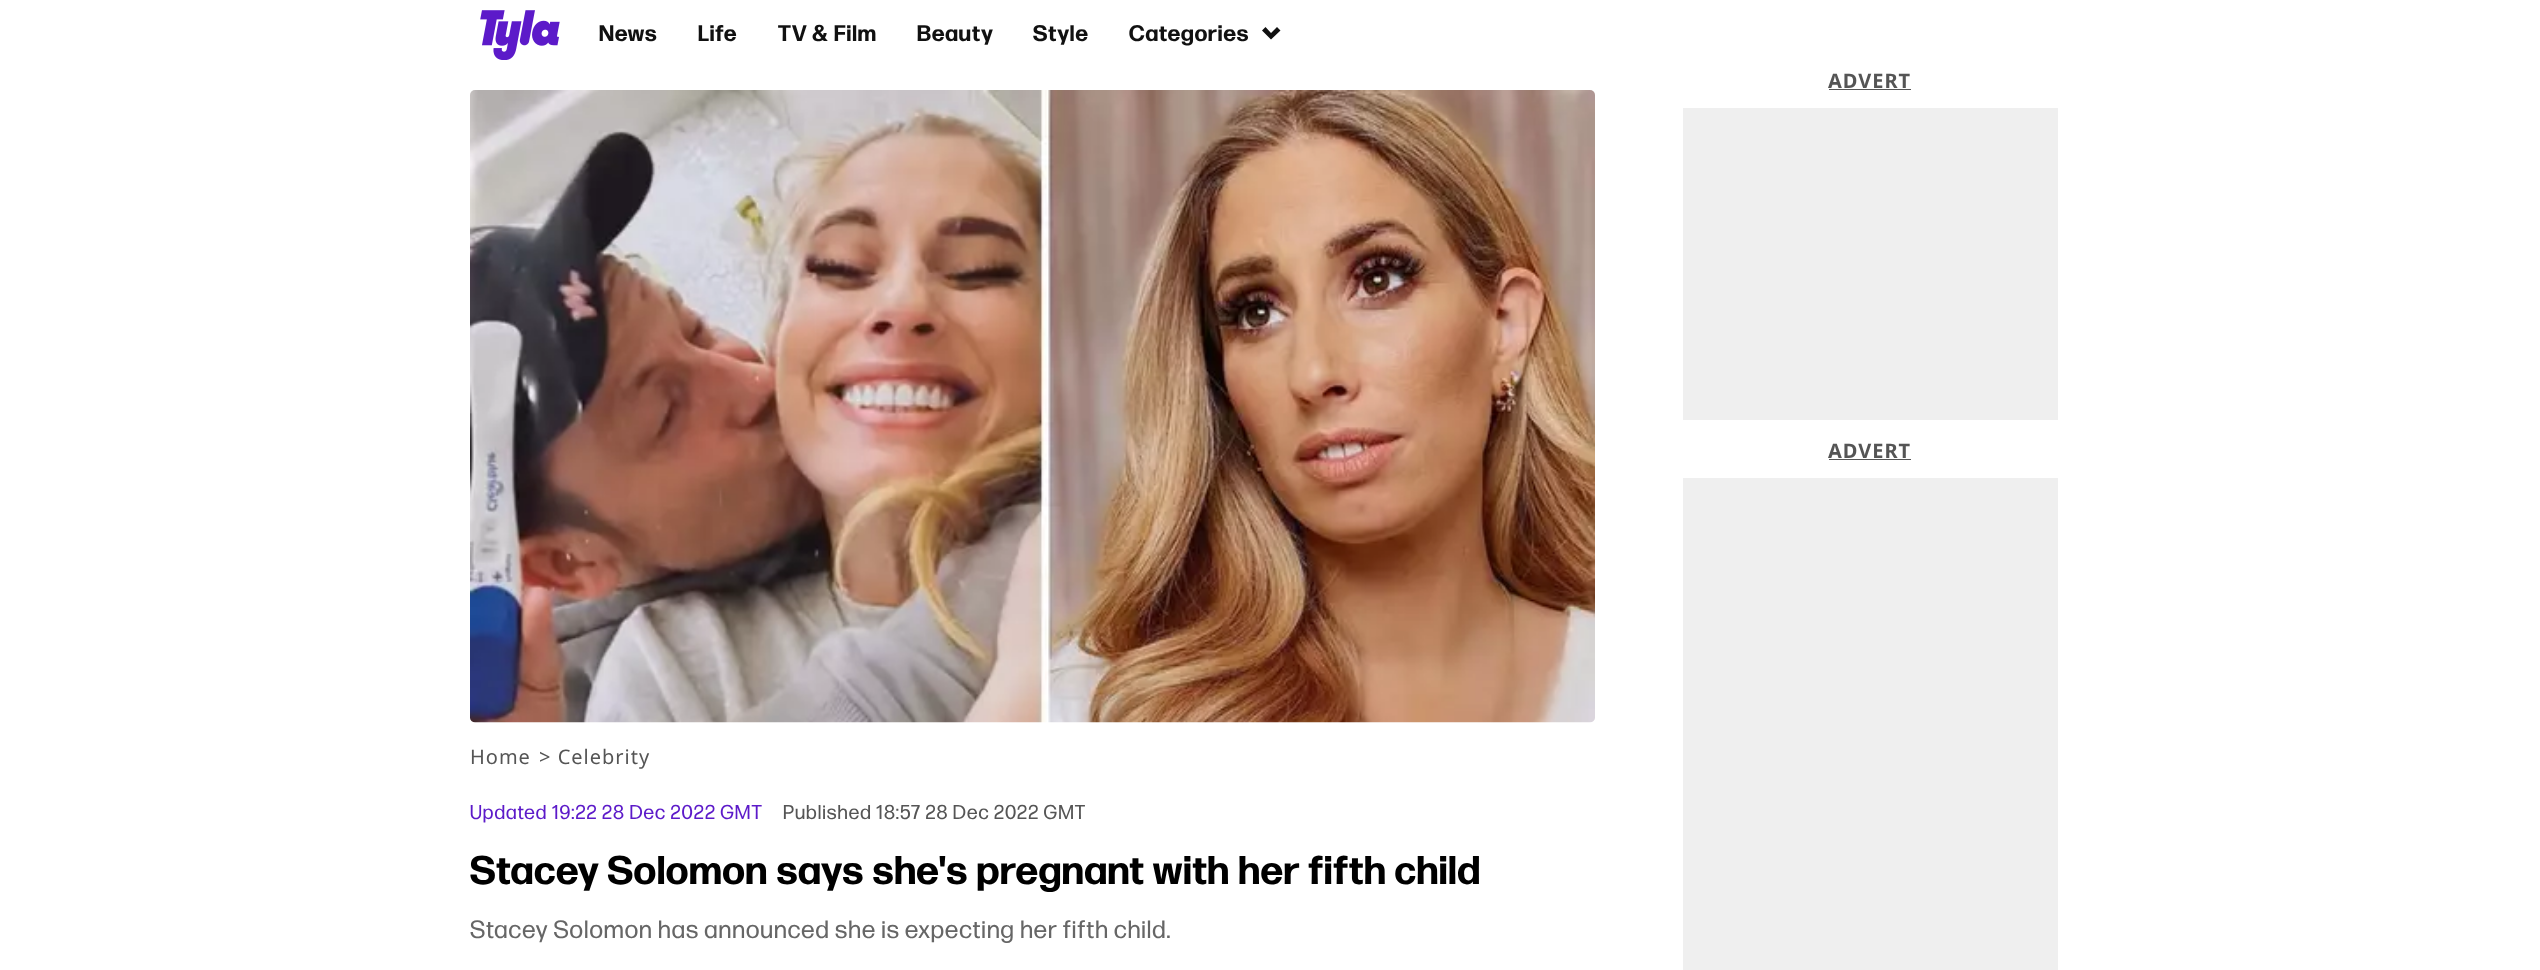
<svg xmlns="http://www.w3.org/2000/svg" xmlns:xlink="http://www.w3.org/1999/xlink" width="2540" height="970" viewBox="0 0 2540 970">
<style>
.cls-1{font:bold 22.5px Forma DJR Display;letter-spacing:1px;fill:#111111}
.cls-2{font:bold 20px Noto Sans;letter-spacing:1px;fill:#555555}
.cls-3{font:20px Noto Sans;letter-spacing:1px;fill:#555555}
.cls-4{font:20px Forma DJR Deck;letter-spacing:1px;fill:#5c1ac9}
.cls-5{font:20px Forma DJR Deck;letter-spacing:1px;fill:#555555}
.cls-6{font:bold 40px Forma DJR Display;letter-spacing:1px;fill:#000000}
.cls-7{font:25px Forma DJR Deck;letter-spacing:1px;fill:#666666}
</style>
<rect width="100%" height="100%" fill="#ffffff"/>
<image xlink:href="image0.png" x="480" y="10" width="80" height="50"/>
<path fill="#111111" d="M1271 33L1277 27L1280.5 30.5L1271 39.5L1262 30.5L1265.5 27Z"/>
<rect fill="#555555" x="1829" y="89" width="82" height="1"/>
<rect fill="#efefef" x="1683" y="108" width="375" height="312"/>
<rect fill="#555555" x="1829" y="459" width="82" height="1"/>
<rect fill="#efefef" x="1683" y="478" width="375" height="492"/>
<image xlink:href="image1.png" x="470" y="90" width="1125" height="633"/>
<text class="cls-1" x="599" y="41">News</text>
<text class="cls-1" x="698" y="41">Life</text>
<text class="cls-1" x="778" y="41">TV &amp; Film</text>
<text class="cls-1" x="917" y="41">Beauty</text>
<text class="cls-1" x="1033" y="41">Style</text>
<text class="cls-1" x="1129" y="41">Categories</text>
<text class="cls-2" x="1828" y="88">ADVERT</text>
<text class="cls-2" x="1828" y="458">ADVERT</text>
<text class="cls-3" x="470" y="764">Home</text>
<text class="cls-3" x="539" y="764">&gt; Celebrity</text>
<text class="cls-4" x="470" y="819">Updated 19:22 28 Dec 2022 GMT</text>
<text class="cls-5" x="783" y="819">Published 18:57 28 Dec 2022 GMT</text>
<text class="cls-6" x="470" y="884">Stacey Solomon says she's pregnant with her fifth child</text>
<text class="cls-7" x="470" y="938">Stacey Solomon has announced she is expecting her fifth child.</text>
</svg>
